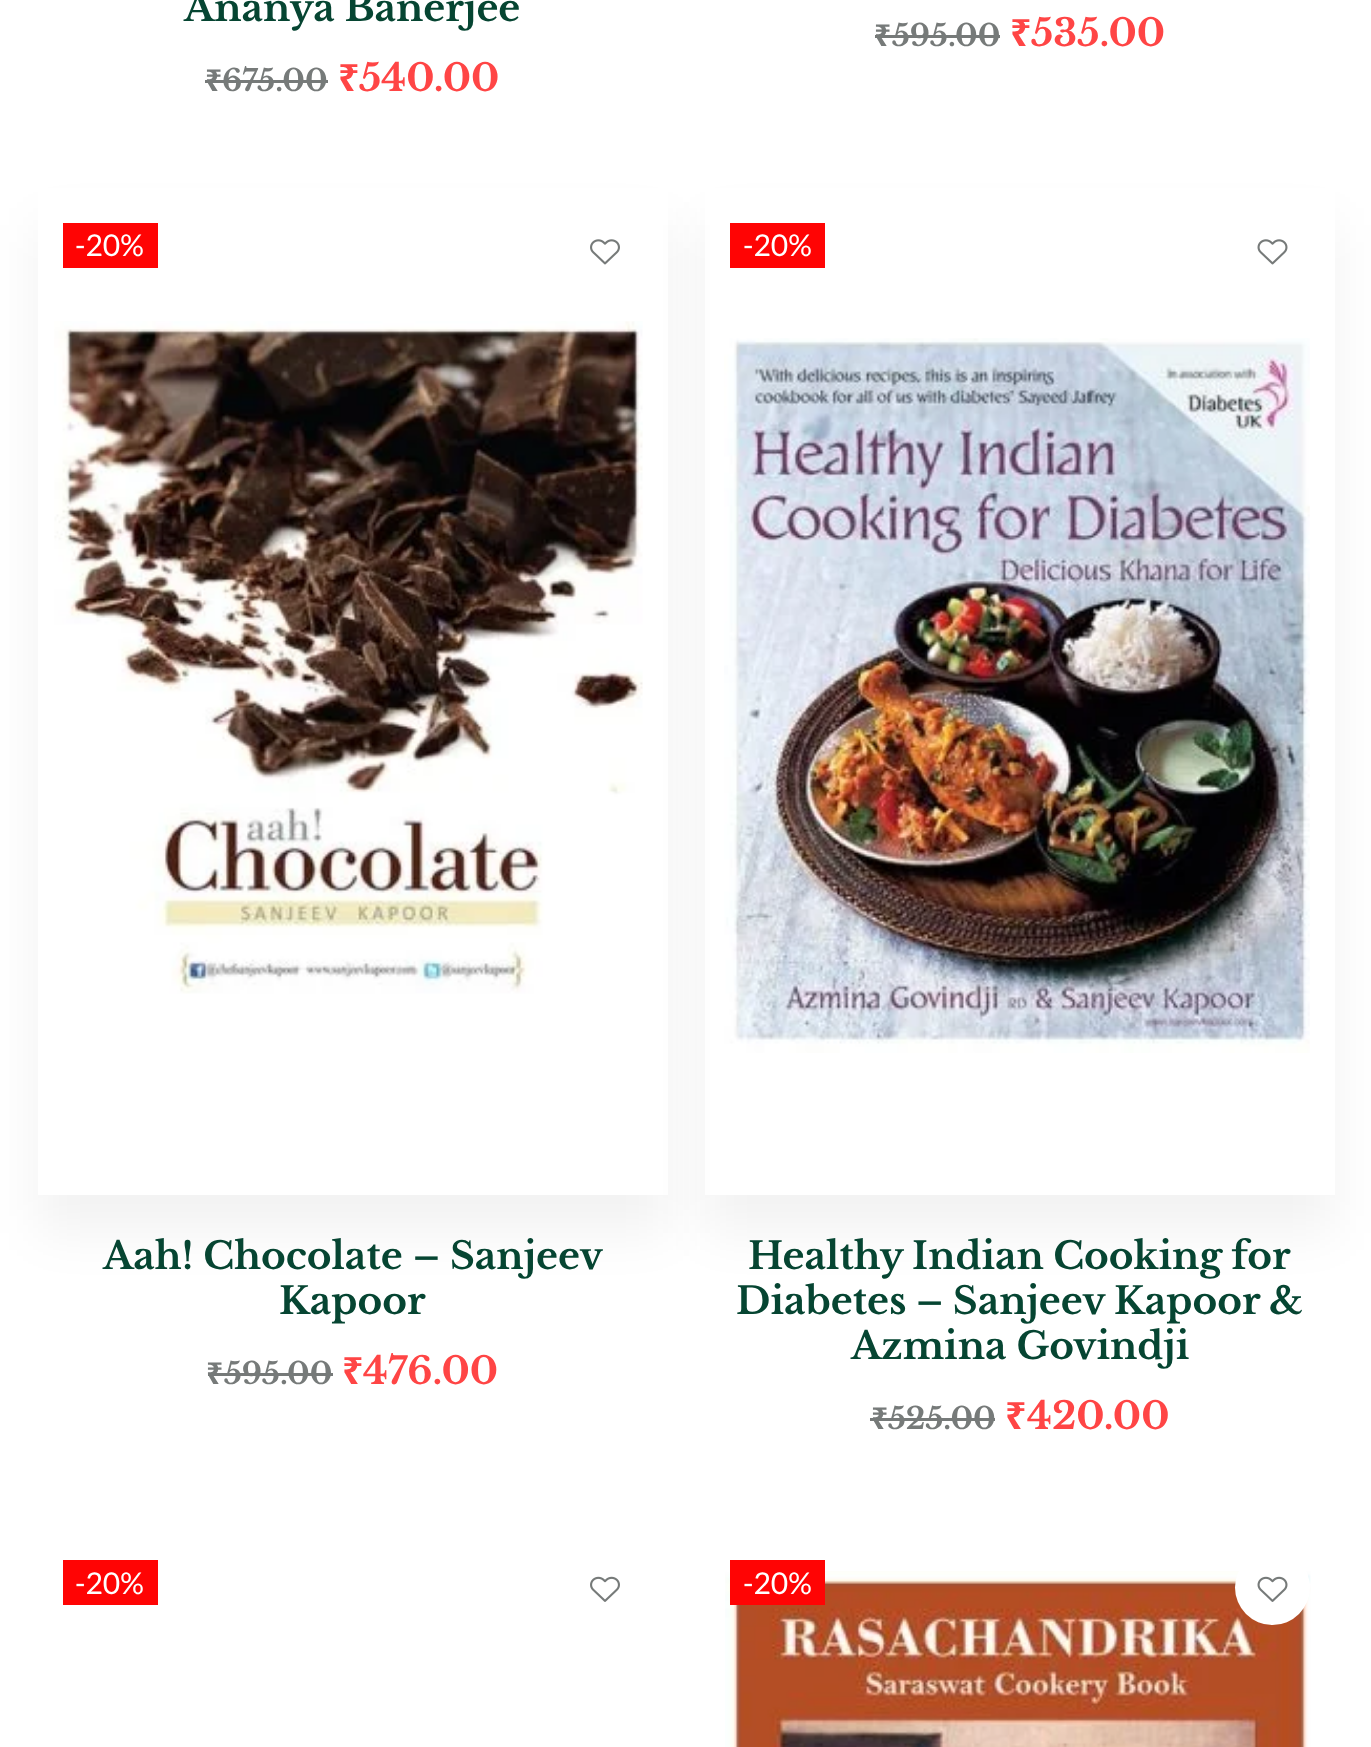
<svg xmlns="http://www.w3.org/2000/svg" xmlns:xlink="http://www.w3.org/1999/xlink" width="1371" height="1747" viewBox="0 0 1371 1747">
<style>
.cls-1{font:bold 37.5px Libre Baskerville;fill:#064532}
.cls-2{font:bold 30px Noto Sans;fill:#767a79}
.cls-3{font:bold 30px Libre Baskerville;fill:#767a79}
.cls-4{font:bold 37.5px Noto Sans;fill:#ff4545}
.cls-5{font:bold 37.5px Libre Baskerville;fill:#ff4545}
.cls-6{font:30px Lato;fill:#ffffff}
</style>
<defs>
<clipPath id="clip1"><path d="M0 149H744V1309H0ZM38 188H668V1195H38Z" clip-rule="evenodd"/></clipPath>
<clipPath id="clip2"><path d="M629 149H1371V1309H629ZM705 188H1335V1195H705Z" clip-rule="evenodd"/></clipPath>
</defs>
<rect width="100%" height="100%" fill="#ffffff"/>
<rect fill="#767a79" x="205" y="80" width="18" height="3"/>
<rect fill="#767a79" x="223" y="80" width="105" height="3"/>
<rect fill="#767a79" x="875" y="35" width="18" height="3"/>
<rect fill="#767a79" x="893" y="35" width="107" height="3"/>
<g clip-path="url(#clip1)">
<rect fill="#000000" fill-opacity="0.05" filter="blur(25px)" x="38" y="225" width="630" height="1008"/>
</g>
<rect fill="#ff0404" x="63" y="223" width="95" height="45"/>
<image xlink:href="image0.png" x="590" y="239" width="30" height="26"/>
<image xlink:href="image1.png" x="54" y="321" width="589" height="673"/>
<rect fill="#767a79" x="208" y="1373" width="15" height="3"/>
<rect fill="#767a79" x="223" y="1373" width="110" height="3"/>
<g clip-path="url(#clip2)">
<rect fill="#000000" fill-opacity="0.05" filter="blur(25px)" x="705" y="225" width="630" height="1008"/>
</g>
<rect fill="#ff0404" x="730" y="223" width="95" height="45"/>
<image xlink:href="image2.png" x="1257" y="239" width="31" height="26"/>
<image xlink:href="image3.png" x="724" y="338" width="586" height="715"/>
<rect fill="#767a79" x="870" y="1418" width="18" height="3"/>
<rect fill="#767a79" x="888" y="1418" width="107" height="3"/>
<rect fill="#ff0404" x="63" y="1560" width="95" height="45"/>
<image xlink:href="image4.png" x="590" y="1576" width="30" height="26"/>
<image xlink:href="image6.png" x="725" y="1571" width="586" height="176"/>
<circle fill="#ffffff" cx="1272.5" cy="1587.5" r="37.5"/>
<image xlink:href="image5.png" x="1257" y="1576" width="31" height="26"/>
<rect fill="#ff0404" x="730" y="1560" width="95" height="45"/>
<text class="cls-1" x="184" y="21">Ananya Banerjee</text>
<text class="cls-2" x="205" y="91">₹</text>
<text class="cls-3" x="222" y="91">675.00</text>
<text class="cls-4" x="338" y="91">₹</text>
<text class="cls-5" x="359" y="91">540.00</text>
<text class="cls-2" x="874" y="46">₹</text>
<text class="cls-3" x="892" y="46">595.00</text>
<text class="cls-4" x="1010" y="46">₹</text>
<text class="cls-5" x="1031" y="46">535.00</text>
<text class="cls-6" x="75" y="256">-20%</text>
<text class="cls-1" x="103" y="1269">Aah! Chocolate – Sanjeev</text>
<text class="cls-1" x="279" y="1314">Kapoor</text>
<text class="cls-2" x="206" y="1384">₹</text>
<text class="cls-3" x="224" y="1384">595.00</text>
<text class="cls-4" x="342" y="1384">₹</text>
<text class="cls-5" x="363" y="1384">476.00</text>
<text class="cls-6" x="743" y="256">-20%</text>
<text class="cls-1" x="748" y="1269" word-spacing="-0.5">Healthy Indian Cooking for</text>
<text class="cls-1" x="736" y="1314" word-spacing="-0.5">Diabetes – Sanjeev Kapoor &amp;</text>
<text class="cls-1" x="851" y="1359">Azmina Govindji</text>
<text class="cls-2" x="871" y="1429">₹</text>
<text class="cls-3" x="888" y="1429">525.00</text>
<text class="cls-4" x="1005" y="1429">₹</text>
<text class="cls-5" x="1027" y="1429">420.00</text>
<text class="cls-6" x="75" y="1594">-20%</text>
<text class="cls-6" x="743" y="1594">-20%</text>
</svg>
